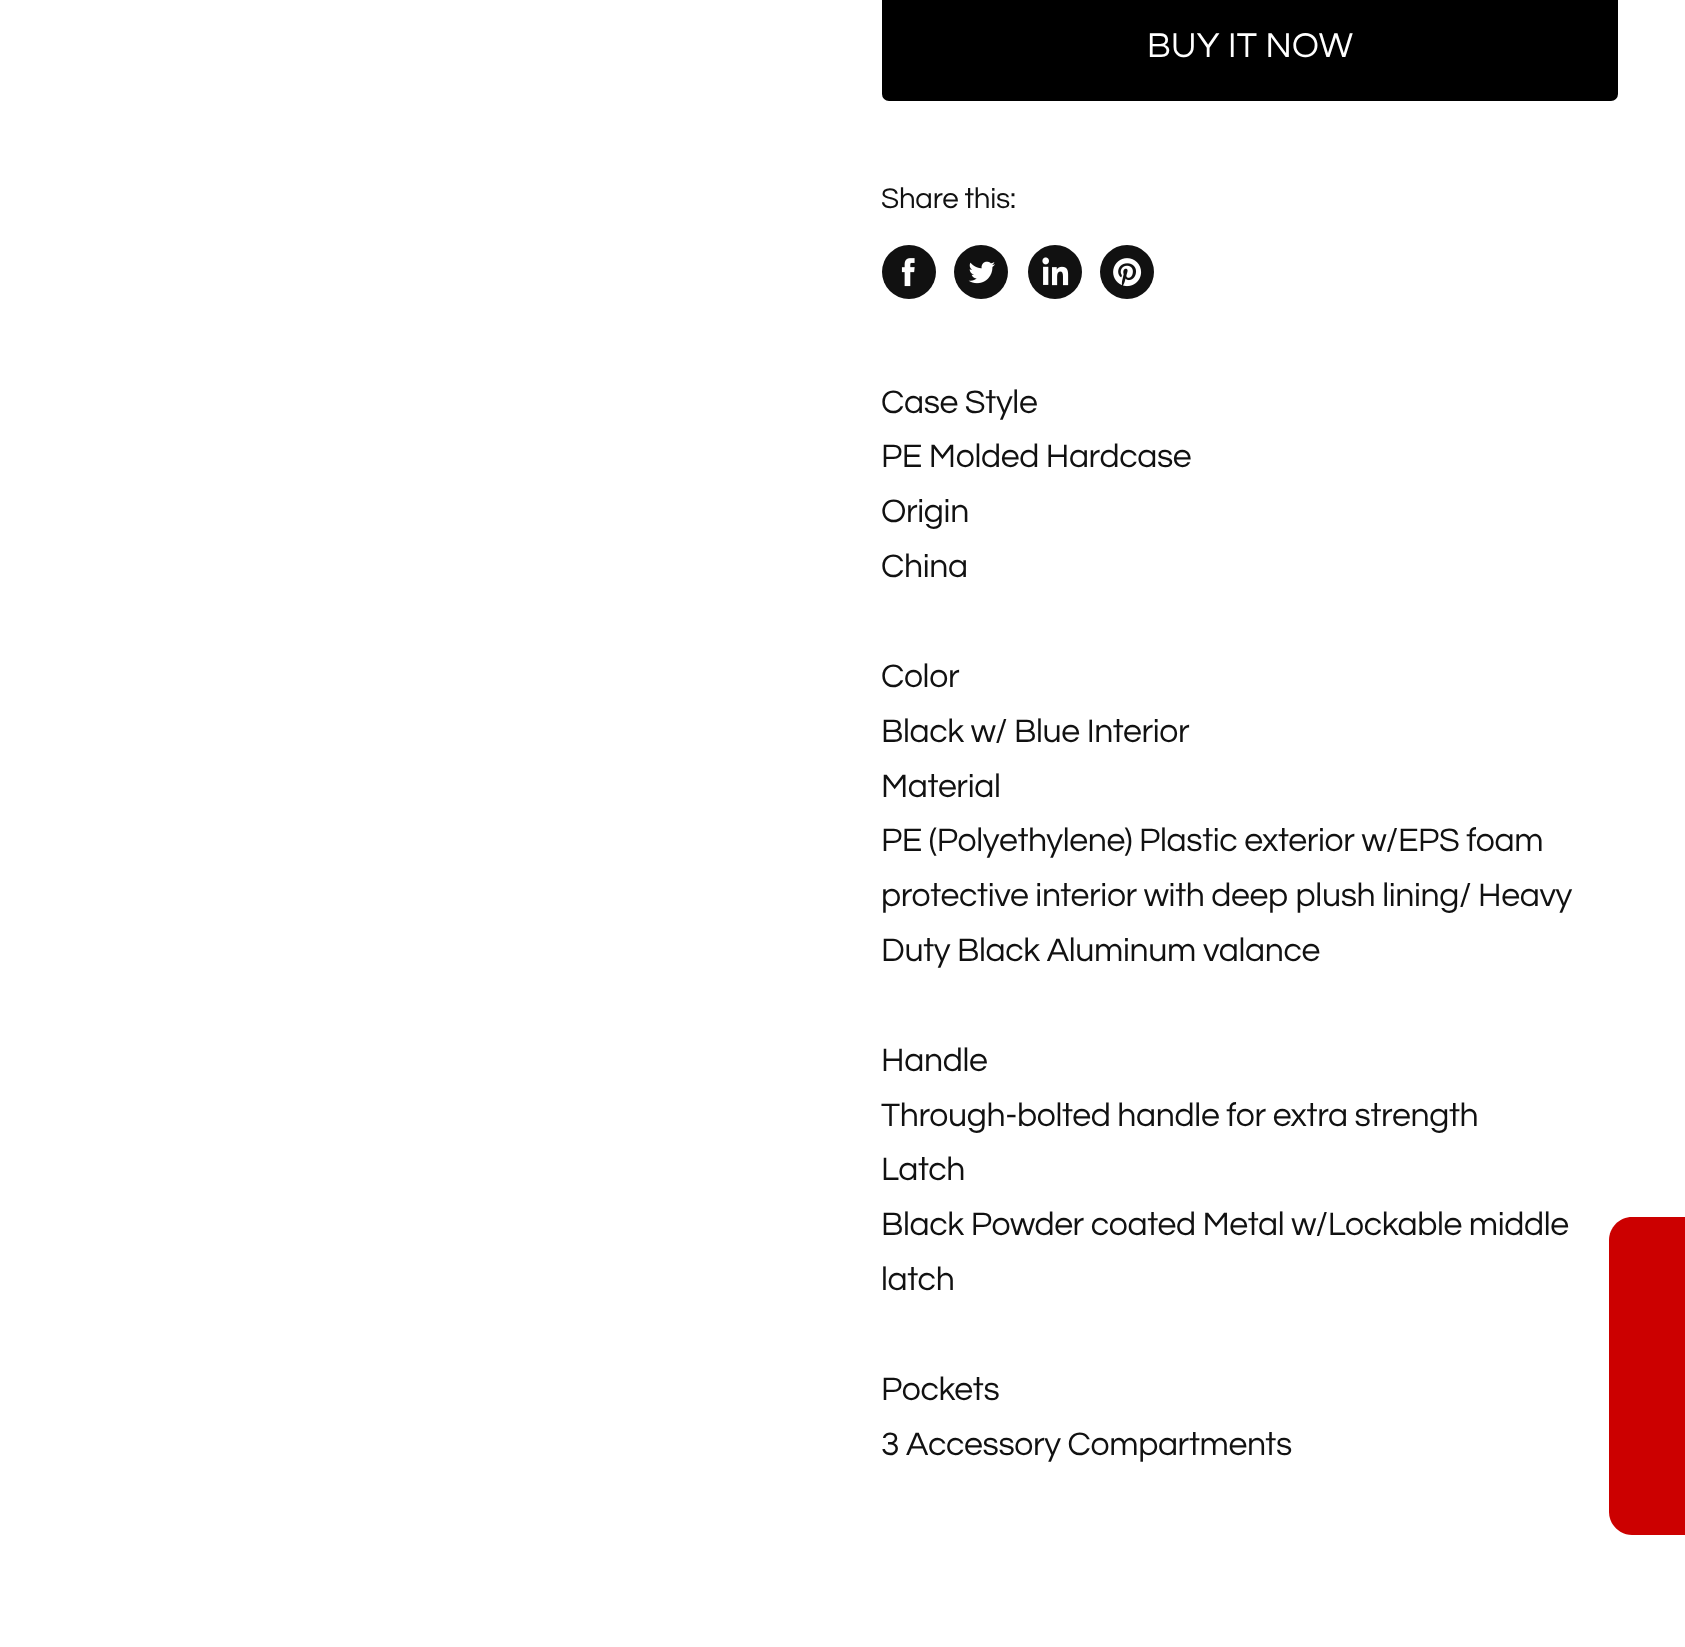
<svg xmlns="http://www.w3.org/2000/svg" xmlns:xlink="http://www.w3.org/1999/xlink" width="1685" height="1647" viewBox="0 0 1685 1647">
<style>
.cls-1{font:35.75px Questrial;letter-spacing:0.4px;fill:#ffffff}
.cls-2{font:29.5px Questrial;letter-spacing:-0.25px;fill:#111111}
.cls-3{font:33.75px Questrial;letter-spacing:-0.35px;fill:#111111}
</style>
<rect width="100%" height="100%" fill="#ffffff"/>
<rect fill="#000000" stroke="#000000" stroke-width="2" x="883" y="-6" width="734" height="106" rx="6"/>
<circle fill="#111111" cx="909" cy="272" r="27"/>
<image xlink:href="image0.png" x="901" y="258" width="14" height="29"/>
<circle fill="#111111" cx="981" cy="272" r="27"/>
<image xlink:href="image1.png" x="968" y="261" width="27" height="23"/>
<circle fill="#111111" cx="1055" cy="272" r="27"/>
<image xlink:href="image2.png" x="1042" y="257" width="27" height="29"/>
<circle fill="#111111" cx="1127" cy="272" r="27"/>
<image xlink:href="image3.png" x="1113" y="258" width="29" height="29"/>
<path fill="#cc0000" d="M1632 1217H1685V1535H1632C1619.5 1535 1609 1524.5 1609 1512V1240C1609 1227.5 1619.5 1217 1632 1217Z"/>
<text class="cls-1" x="1147" y="57">BUY IT NOW</text>
<text class="cls-2" x="881" y="208">Share this:</text>
<text class="cls-3"><tspan x="881" y="413">Case Style</tspan><tspan x="881" y="467">PE Molded Hardcase</tspan><tspan x="881" y="522">Origin</tspan><tspan x="881" y="577">China</tspan></text>
<text class="cls-3"><tspan x="881" y="687">Color</tspan><tspan x="881" y="742">Black w/ Blue Interior</tspan><tspan x="881" y="797">Material</tspan><tspan x="881" y="851">PE (Polyethylene) Plastic exterior w/EPS foam</tspan><tspan x="881" y="906">protective interior with deep plush lining/ Heavy</tspan><tspan x="881" y="961">Duty Black Aluminum valance</tspan></text>
<text class="cls-3"><tspan x="881" y="1071">Handle</tspan><tspan x="881" y="1126">Through-bolted handle for extra strength</tspan><tspan x="881" y="1180">Latch</tspan><tspan x="881" y="1235">Black Powder coated Metal w/Lockable middle</tspan><tspan x="881" y="1290">latch</tspan></text>
<text class="cls-3"><tspan x="881" y="1400">Pockets</tspan><tspan x="881" y="1455">3 Accessory Compartments</tspan></text>
</svg>
